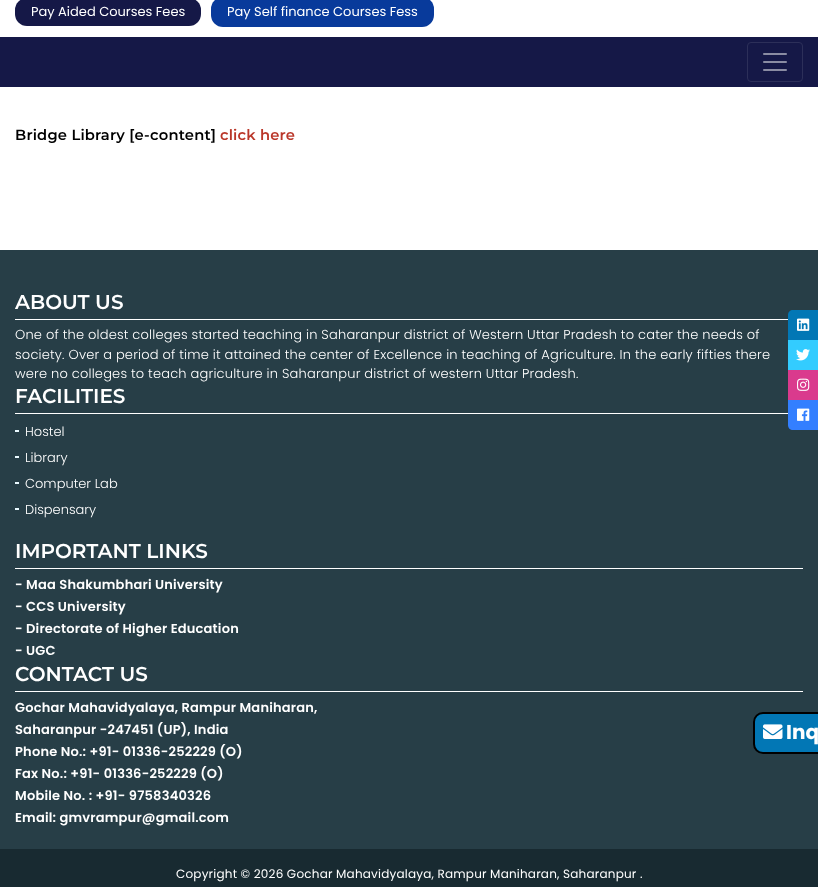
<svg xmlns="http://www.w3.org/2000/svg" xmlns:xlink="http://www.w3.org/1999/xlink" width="818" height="887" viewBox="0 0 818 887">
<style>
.cls-1{font:13px Poppins;fill:#ffffff}
.cls-2{font:600 14.7px Montserrat;letter-spacing:0.2px;fill:#000000}
.cls-3{font:600 14.7px Montserrat;letter-spacing:0.2px;fill:#ba372a}
.cls-4{font:600 20px Montserrat;fill:#ffffff}
.cls-5{font:300 13px Poppins;letter-spacing:0.2px;fill:#ffffff}
.cls-6{font:300 13px Poppins;fill:#ffffff}
.cls-7{font:600 13px Poppins;letter-spacing:0.2px;fill:#ffffff}
.cls-8{font:12px Poppins;letter-spacing:0.2px;fill:#ffffff}
.cls-9{font:bold 20px Poppins;fill:#ffffff}
</style>
<rect width="100%" height="100%" fill="#ffffff"/>
<rect fill="#151847" x="15" y="-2" width="186" height="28" rx="12"/>
<rect fill="#083a9b" x="211" y="-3" width="223" height="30" rx="12"/>
<rect fill="#151847" x="0" y="37" width="818" height="50"/>
<rect fill="none" stroke="#2c2f59" x="747.5" y="42.5" width="55" height="39" rx="3.5"/>
<image xlink:href="image0.png" x="763" y="53" width="24" height="18"/>
<rect fill="#273e47" x="0" y="250" width="818" height="599"/>
<rect fill="#ffffff" x="15" y="319" width="773" height="1"/>
<rect fill="#ffffff" x="15" y="413" width="773" height="1"/>
<rect fill="#e9f9ff" x="15" y="430" width="4" height="2"/>
<rect fill="#e9f9ff" x="15" y="456" width="4" height="2"/>
<rect fill="#e9f9ff" x="15" y="482" width="4" height="2"/>
<rect fill="#e9f9ff" x="15" y="508" width="4" height="2"/>
<rect fill="#ffffff" x="15" y="568" width="788" height="1"/>
<rect fill="#ffffff" x="15" y="691" width="788" height="1"/>
<rect fill="#182a31" x="0" y="849" width="818" height="38"/>
<path fill="#0277b5" d="M793 310H818V340H788V315C788 312 790 310 793 310Z"/>
<image xlink:href="image1.png" x="797" y="318" width="13" height="13"/>
<rect fill="#33ccff" x="788" y="340" width="30" height="30"/>
<image xlink:href="image2.png" x="796" y="349" width="14" height="12"/>
<rect fill="#da3a8d" x="788" y="370" width="30" height="30"/>
<image xlink:href="image3.png" x="797" y="378" width="13" height="13"/>
<path fill="#337fff" d="M788 400H818V430H793C790 430 788 428 788 425Z"/>
<image xlink:href="image4.png" x="797" y="408" width="13" height="13"/>
<path fill="#0277b5" stroke="#000000" stroke-width="2" d="M763 713H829V753H763C758 753 754 749 754 744V722C754 717 758 713 763 713Z"/>
<image xlink:href="image5.png" x="763" y="724" width="20" height="15"/>
<text class="cls-1" x="31" y="16">Pay Aided Courses Fees</text>
<text class="cls-1" x="227" y="16">Pay Self finance Courses Fess</text>
<text class="cls-2" x="15" y="140">Bridge Library [e-content]</text>
<text class="cls-3" x="220" y="140">click here</text>
<text class="cls-4" x="15" y="309">ABOUT US</text>
<text class="cls-5"><tspan x="15" y="339">One of the oldest colleges started teaching in Saharanpur district of Western Uttar Pradesh to cater the needs of</tspan><tspan x="15" y="359">society. Over a period of time it attained the center of Excellence in teaching of Agriculture. In the early fifties there</tspan><tspan x="15" y="378">were no colleges to teach agriculture in Saharanpur district of western Uttar Pradesh.</tspan></text>
<text class="cls-4" x="15" y="403">FACILITIES</text>
<text class="cls-6" x="25" y="436">Hostel</text>
<text class="cls-6" x="25" y="462">Library</text>
<text class="cls-6" x="25" y="488">Computer Lab</text>
<text class="cls-6" x="25" y="514">Dispensary</text>
<text class="cls-4" x="15" y="558">IMPORTANT LINKS</text>
<text class="cls-7"><tspan x="15" y="589">- Maa Shakumbhari University</tspan><tspan x="15" y="611">- CCS University</tspan><tspan x="15" y="633">- Directorate of Higher Education</tspan><tspan x="15" y="655">- UGC</tspan></text>
<text class="cls-4" x="15" y="681">CONTACT US</text>
<text class="cls-7"><tspan x="15" y="712">Gochar Mahavidyalaya, Rampur Maniharan,</tspan><tspan x="15" y="734">Saharanpur -247451 (UP), India</tspan><tspan x="15" y="756">Phone No.: +91- 01336-252229 (O)</tspan><tspan x="15" y="778">Fax No.: +91- 01336-252229 (O)</tspan><tspan x="15" y="800">Mobile No. : +91- 9758340326</tspan><tspan x="15" y="822">Email: gmvrampur@gmail.com</tspan></text>
<text class="cls-8" x="176" y="878">Copyright © 2026 Gochar Mahavidyalaya, Rampur Maniharan, Saharanpur .</text>
<text class="cls-9" x="786" y="739">Inq</text>
</svg>
